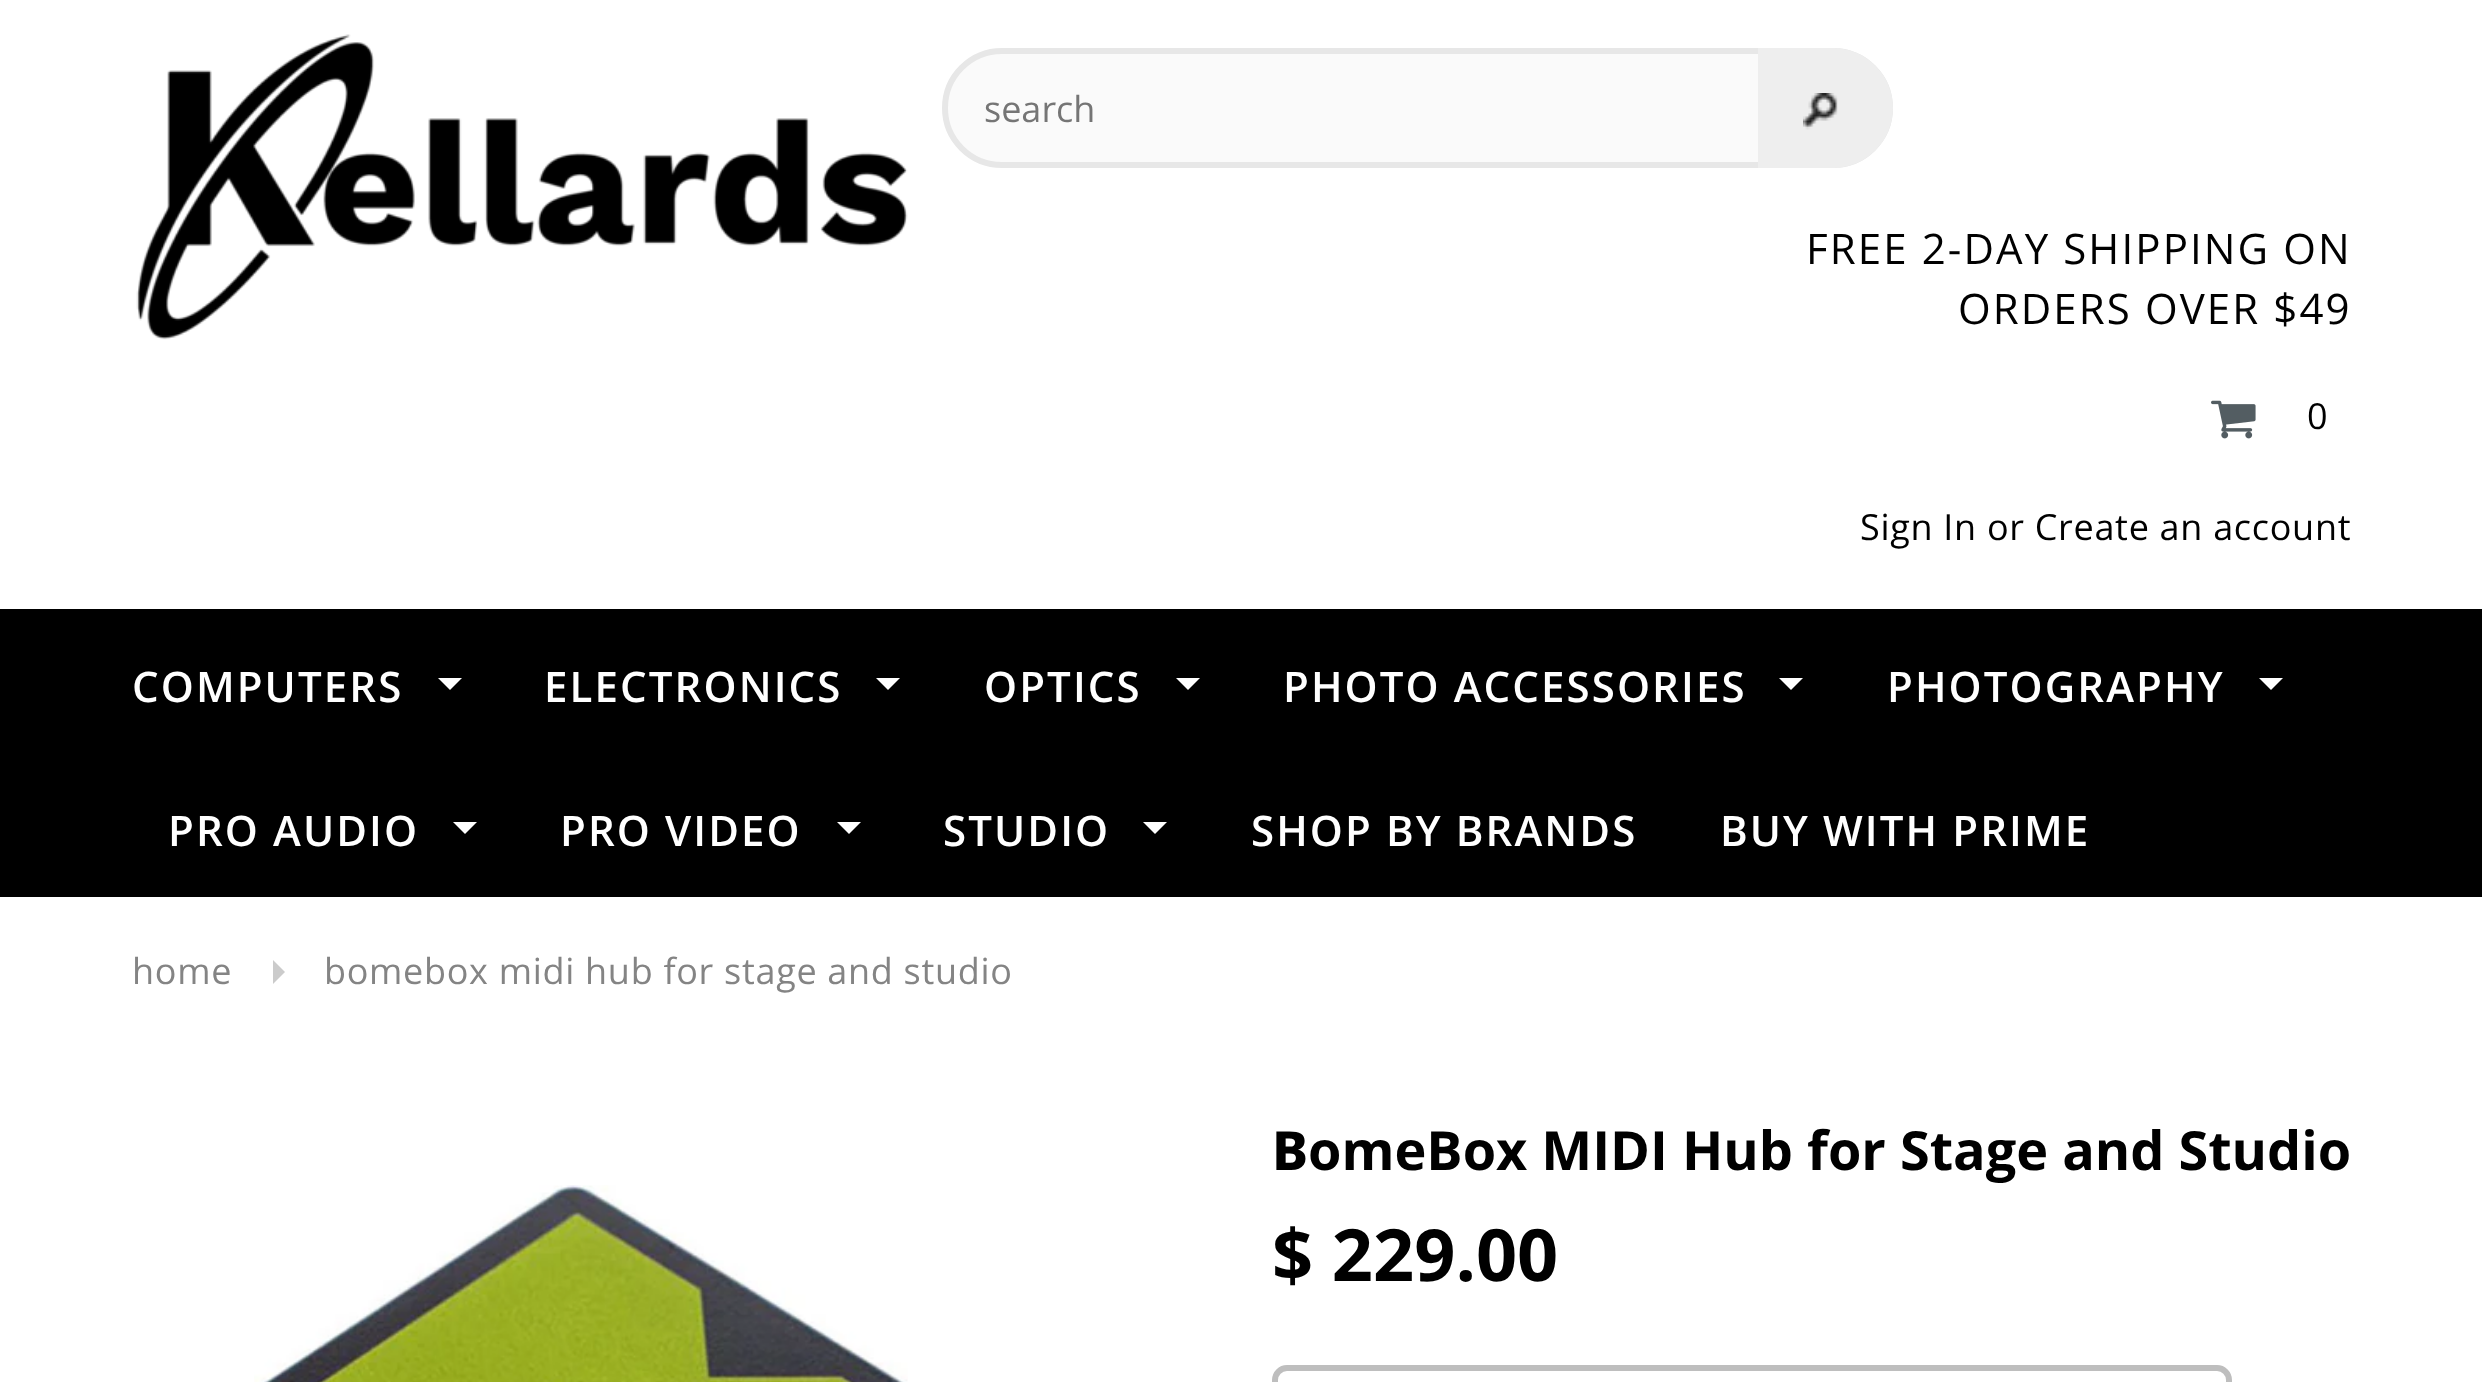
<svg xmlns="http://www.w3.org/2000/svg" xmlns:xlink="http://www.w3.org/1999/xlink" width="2482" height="1382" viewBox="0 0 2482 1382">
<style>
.cls-1{font:36px Open Sans;fill:#757575}
.cls-2{font:42px Open Sans;letter-spacing:2.1px;fill:#000000}
.cls-3{font:36px Open Sans;letter-spacing:0.7px;fill:#000000}
.cls-4{font:600 42px Open Sans;letter-spacing:2.1px;fill:#ffffff}
.cls-5{font:36px Open Sans;letter-spacing:0.7px;fill:#848484}
.cls-6{font:800 54px Noto Sans;fill:#000000}
.cls-7{font:bold 54px Open Sans;fill:#000000}
.cls-8{font:bold 72px Open Sans;fill:#000000}
</style>
<rect width="100%" height="100%" fill="#ffffff"/>
<image xlink:href="image0.png" x="136" y="34" width="772" height="306"/>
<rect fill="#fafafa" stroke="#e7e7e7" stroke-width="6" x="945" y="51" width="945" height="114" rx="57"/>
<path fill="#eeeeee" d="M1758 48H1833C1866 48 1893 75 1893 108C1893 141 1866 168 1833 168H1758Z"/>
<image xlink:href="image1.png" x="1803" y="93" width="35" height="37"/>
<image xlink:href="image2.png" x="2211" y="400" width="45" height="39"/>
<rect fill="#000000" x="0" y="609" width="2482" height="288"/>
<path fill="#ffffff" d="M438 678H462L450 690Z"/>
<path fill="#ffffff" d="M876 678H900L888 690Z"/>
<path fill="#ffffff" d="M1176 678H1200L1188 690Z"/>
<path fill="#ffffff" d="M1779 678H1803L1791 690Z"/>
<path fill="#ffffff" d="M2259 678H2283L2271 690Z"/>
<path fill="#ffffff" d="M453 822H477L465 834Z"/>
<path fill="#ffffff" d="M837 822H861L849 834Z"/>
<path fill="#ffffff" d="M1143 822H1167L1155 834Z"/>
<path fill="#cbcbcb" d="M273 984V960L285 972Z"/>
<image xlink:href="image3.png" x="254" y="1185" width="654" height="197"/>
<rect fill="none" stroke="#bebebe" stroke-width="6" x="1275" y="1368" width="954" height="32" rx="12"/>
<text class="cls-1" x="984" y="122">search</text>
<text class="cls-2" x="1806" y="264">FREE 2-DAY SHIPPING ON</text>
<text class="cls-2" x="1958" y="324">ORDERS OVER $49</text>
<text class="cls-3" x="2307" y="429">0</text>
<text class="cls-3" x="1860" y="540">Sign In or Create an account</text>
<text class="cls-4" x="132" y="702">COMPUTERS</text>
<text class="cls-4" x="544" y="702">ELECTRONICS</text>
<text class="cls-4" x="984" y="702">OPTICS</text>
<text class="cls-4" x="1283" y="702">PHOTO ACCESSORIES</text>
<text class="cls-4" x="1887" y="702">PHOTOGRAPHY</text>
<text class="cls-4" x="168" y="846">PRO AUDIO</text>
<text class="cls-4" x="560" y="846">PRO VIDEO</text>
<text class="cls-4" x="943" y="846">STUDIO</text>
<text class="cls-4" x="1251" y="846">SHOP BY BRANDS</text>
<text class="cls-4" x="1720" y="846">BUY WITH PRIME</text>
<text class="cls-5" x="132" y="984">home</text>
<text class="cls-5" x="324" y="984">bomebox midi hub for stage and studio</text>
<text class="cls-6" x="1272" y="1170">B</text>
<text class="cls-7" x="1308" y="1170">omeBox MIDI Hub for Stage and Studio</text>
<text class="cls-8" x="1272" y="1281">$ 229.00</text>
</svg>
